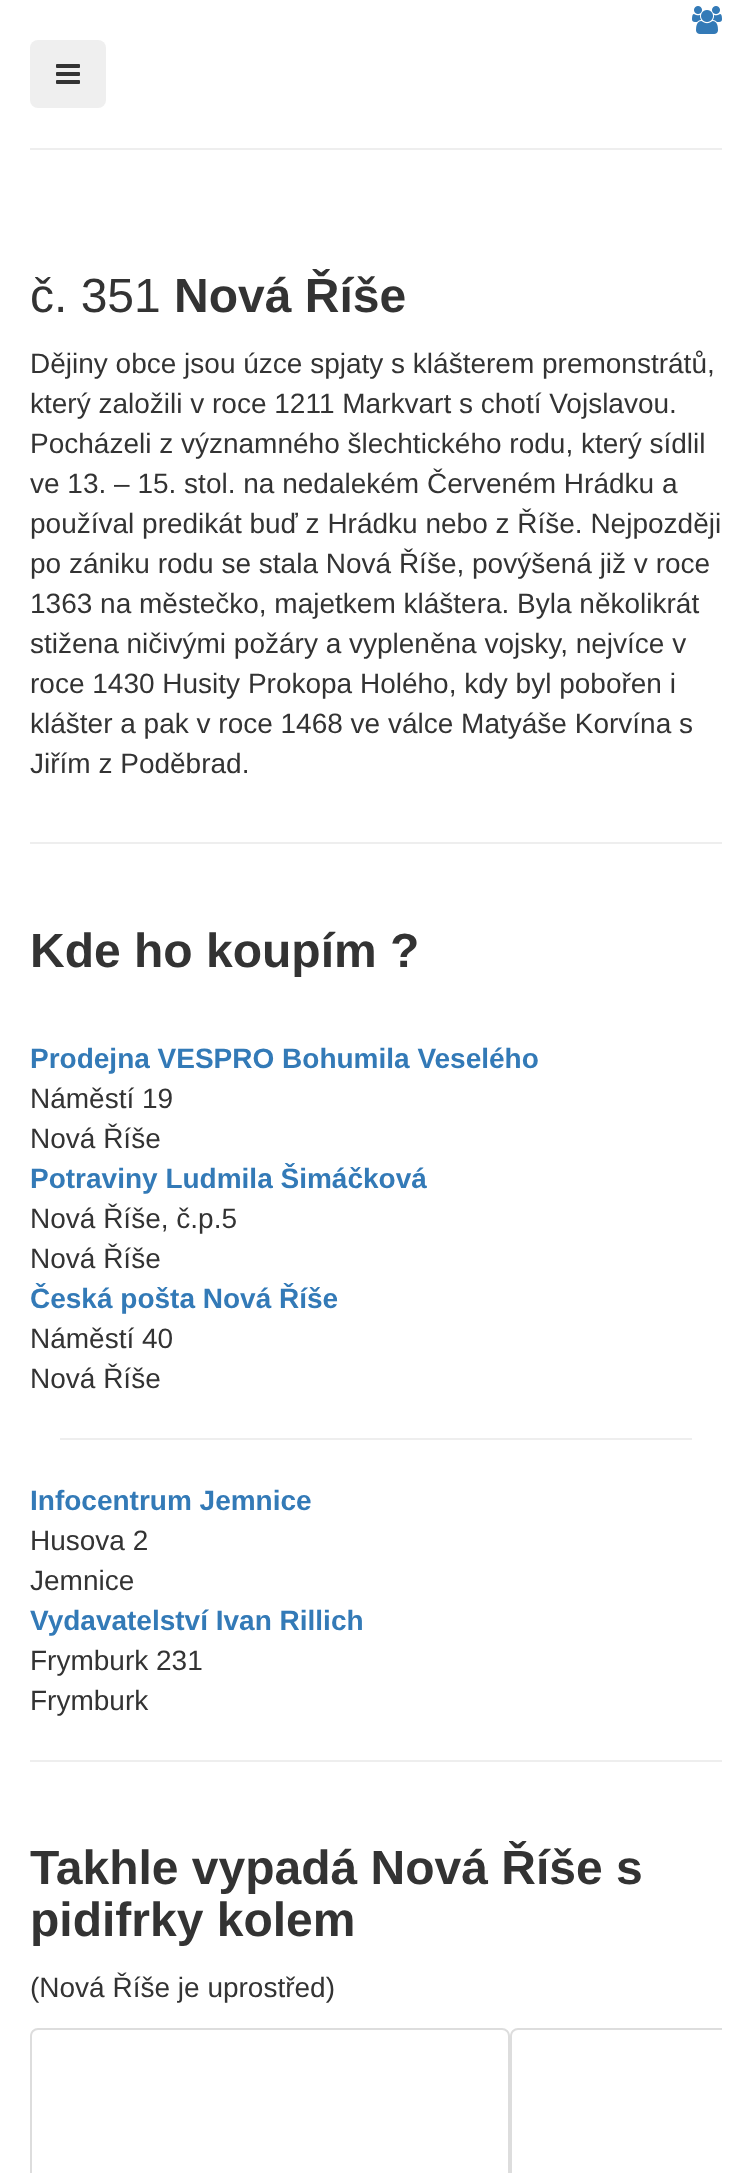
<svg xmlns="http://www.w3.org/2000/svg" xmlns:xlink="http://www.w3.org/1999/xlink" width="751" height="2173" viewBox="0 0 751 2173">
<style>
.cls-1{font:48px Liberation Sans;fill:#333333}
.cls-2{font:bold 48px Liberation Sans;fill:#333333}
.cls-3{font:28px Liberation Sans;fill:#333333}
.cls-4{font:bold 28px Liberation Sans;fill:#337ab7}
</style>
<defs>
<clipPath id="clip1"><rect x="30" y="2028" width="692" height="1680"/></clipPath>
</defs>
<rect width="100%" height="100%" fill="#ffffff"/>
<image xlink:href="image0.png" x="692" y="6" width="30" height="28"/>
<rect fill="#efefef" x="30" y="40" width="76" height="68" rx="8"/>
<image xlink:href="image1.png" x="56" y="64" width="24" height="20"/>
<rect fill="#eeeeee" x="30" y="148" width="692" height="2"/>
<rect fill="#eeeeee" x="30" y="842" width="692" height="2"/>
<rect fill="#eeeeee" x="60" y="1438" width="632" height="2"/>
<rect fill="#eeeeee" x="30" y="1760" width="692" height="2"/>
<rect fill="none" stroke="#dddddd" stroke-width="2" x="31" y="2029" width="478" height="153" rx="7"/>
<g clip-path="url(#clip1)">
<rect fill="none" stroke="#dddddd" stroke-width="2" x="511" y="2029" width="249" height="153" rx="7"/>
</g>
<text class="cls-1" x="30" y="312">č. 351</text>
<text class="cls-2" x="174" y="312">Nová Říše</text>
<text class="cls-3"><tspan x="30" y="373">Dějiny obce jsou úzce spjaty s klášterem premonstrátů,</tspan><tspan x="30" y="413">který založili v roce 1211 Markvart s chotí Vojslavou.</tspan><tspan x="30" y="453">Pocházeli z významného šlechtického rodu, který sídlil</tspan><tspan x="30" y="493">ve 13. – 15. stol. na nedalekém Červeném Hrádku a</tspan><tspan x="30" y="533">používal predikát buď z Hrádku nebo z Říše. Nejpozději</tspan><tspan x="30" y="573">po zániku rodu se stala Nová Říše, povýšená již v roce</tspan><tspan x="30" y="613">1363 na městečko, majetkem kláštera. Byla několikrát</tspan><tspan x="30" y="653">stižena ničivými požáry a vypleněna vojsky, nejvíce v</tspan><tspan x="30" y="693">roce 1430 Husity Prokopa Holého, kdy byl pobořen i</tspan><tspan x="30" y="733">klášter a pak v roce 1468 ve válce Matyáše Korvína s</tspan><tspan x="30" y="773">Jiřím z Poděbrad.</tspan></text>
<text class="cls-2" x="30" y="967">Kde ho koupím ?</text>
<text class="cls-4" x="30" y="1068">Prodejna VESPRO Bohumila Veselého</text>
<text class="cls-3"><tspan x="30" y="1108">Náměstí 19</tspan><tspan x="30" y="1148">Nová Říše</tspan></text>
<text class="cls-4" x="30" y="1188">Potraviny Ludmila Šimáčková</text>
<text class="cls-3"><tspan x="30" y="1228">Nová Říše, č.p.5</tspan><tspan x="30" y="1268">Nová Říše</tspan></text>
<text class="cls-4" x="30" y="1308">Česká pošta Nová Říše</text>
<text class="cls-3"><tspan x="30" y="1348">Náměstí 40</tspan><tspan x="30" y="1388">Nová Říše</tspan></text>
<text class="cls-4" x="30" y="1510">Infocentrum Jemnice</text>
<text class="cls-3"><tspan x="30" y="1550">Husova 2</tspan><tspan x="30" y="1590">Jemnice</tspan></text>
<text class="cls-4" x="30" y="1630">Vydavatelství Ivan Rillich</text>
<text class="cls-3"><tspan x="30" y="1670">Frymburk 231</tspan><tspan x="30" y="1710">Frymburk</tspan></text>
<text class="cls-2"><tspan x="30" y="1884">Takhle vypadá Nová Říše s</tspan><tspan x="30" y="1936">pidifrky kolem</tspan></text>
<text class="cls-3" x="30" y="1997">(Nová Říše je uprostřed)</text>
</svg>
